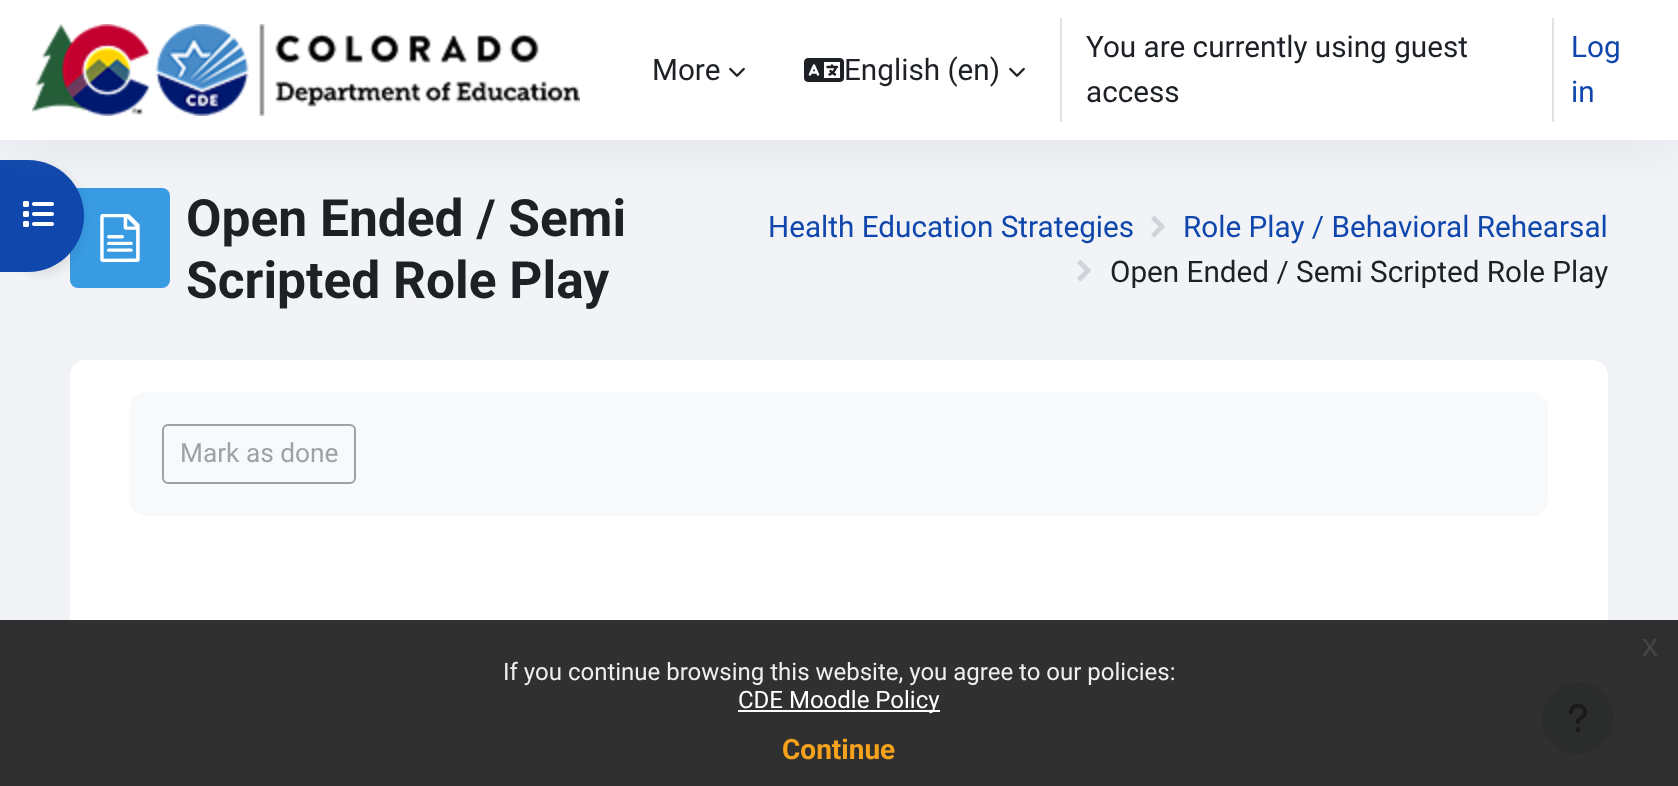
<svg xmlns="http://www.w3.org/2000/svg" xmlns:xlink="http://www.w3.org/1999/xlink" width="1678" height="786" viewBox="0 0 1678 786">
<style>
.cls-1{font:29.7px Roboto;fill:#1d2125}
.cls-2{font:29.7px Roboto;fill:#0f47ad}
.cls-3{font:bold 51.5px Roboto;fill:#1d2125}
.cls-4{font:26.25px Roboto;fill:#9ca2a7}
.cls-5{font:32px Liberation Sans;fill:#464646}
.cls-6{font:24px Roboto;fill:#efefef}
.cls-7{font:24px Roboto;fill:#ffffff}
.cls-8{font:bold 28px Roboto;fill:#f6a21d}
</style>
<rect width="100%" height="100%" fill="#f2f3f7"/>
<rect fill="#2f2f2f" x="0" y="620" width="1678" height="166"/>
<rect fill="#399be2" x="70" y="188" width="100" height="100" rx="8"/>
<image xlink:href="image3.png" x="100" y="214" width="40" height="48"/>
<image xlink:href="image4.png" x="1151" y="216" width="14" height="22"/>
<rect fill="#000000" fill-opacity="0.07" filter="blur(4px)" x="0" y="164" width="84" height="112" rx="56"/>
<path fill="#0f47ad" d="M0 160H28C59 160 84 185 84 216C84 247 59 272 28 272H0Z"/>
<image xlink:href="image5.png" x="23" y="201" width="31" height="26"/>
<rect fill="#8c98a4" fill-opacity="0.13" filter="blur(24px)" x="0" y="12" width="1678" height="140"/>
<rect fill="#ffffff" x="0" y="0" width="1678" height="140"/>
<image xlink:href="image0.png" x="32" y="24" width="548" height="92"/>
<image xlink:href="image1.png" x="729" y="67" width="16" height="10"/>
<image xlink:href="image2.png" x="804" y="58" width="40" height="24"/>
<image xlink:href="image1.png" x="1009" y="67" width="16" height="10"/>
<rect fill="#dee2e6" x="1060" y="18" width="2" height="104"/>
<rect fill="#dee2e6" x="1552" y="18" width="2" height="104"/>
<image xlink:href="image4.png" x="1077" y="260" width="14" height="22"/>
<path fill="#ffffff" d="M86 360H1592C1601 360 1608 367 1608 376V786H70V376C70 367 77 360 86 360Z"/>
<rect fill="#303030" x="70" y="620" width="1538" height="166"/>
<rect fill="#f8f9fa" x="130" y="392" width="1418" height="124" rx="16"/>
<rect fill="none" stroke="#9ca2a7" stroke-width="2" x="163" y="425" width="192" height="58" rx="5"/>
<circle fill="#2b2c2c" cx="1578" cy="718" r="36"/>
<image xlink:href="image6.png" x="1569" y="704" width="18" height="28"/>
<rect fill="#ffffff" x="738" y="710" width="202" height="2"/>
<text class="cls-1" x="652" y="80">More</text>
<text class="cls-1" x="844" y="80">English (en)</text>
<text class="cls-1" x="1086" y="57">You are currently using guest</text>
<text class="cls-2"><tspan x="1571" y="57">Log</tspan><tspan x="1571" y="102">in</tspan></text>
<text class="cls-1" x="1086" y="102">access</text>
<text class="cls-3"><tspan x="186" y="236">Open Ended / Semi</tspan><tspan x="186" y="298">Scripted Role Play</tspan></text>
<text class="cls-2" x="768" y="237">Health Education Strategies</text>
<text class="cls-2" x="1183" y="237">Role Play / Behavioral Rehearsal</text>
<text class="cls-1" x="1110" y="282">Open Ended / Semi Scripted Role Play</text>
<text class="cls-4" x="180" y="462">Mark as done</text>
<text class="cls-5" x="1642" y="656">x</text>
<text class="cls-6" x="503" y="680">If you continue browsing this website, you agree to our policies:</text>
<text class="cls-7" x="738" y="708">CDE Moodle Policy</text>
<text class="cls-8" x="782" y="759">Continue</text>
</svg>
